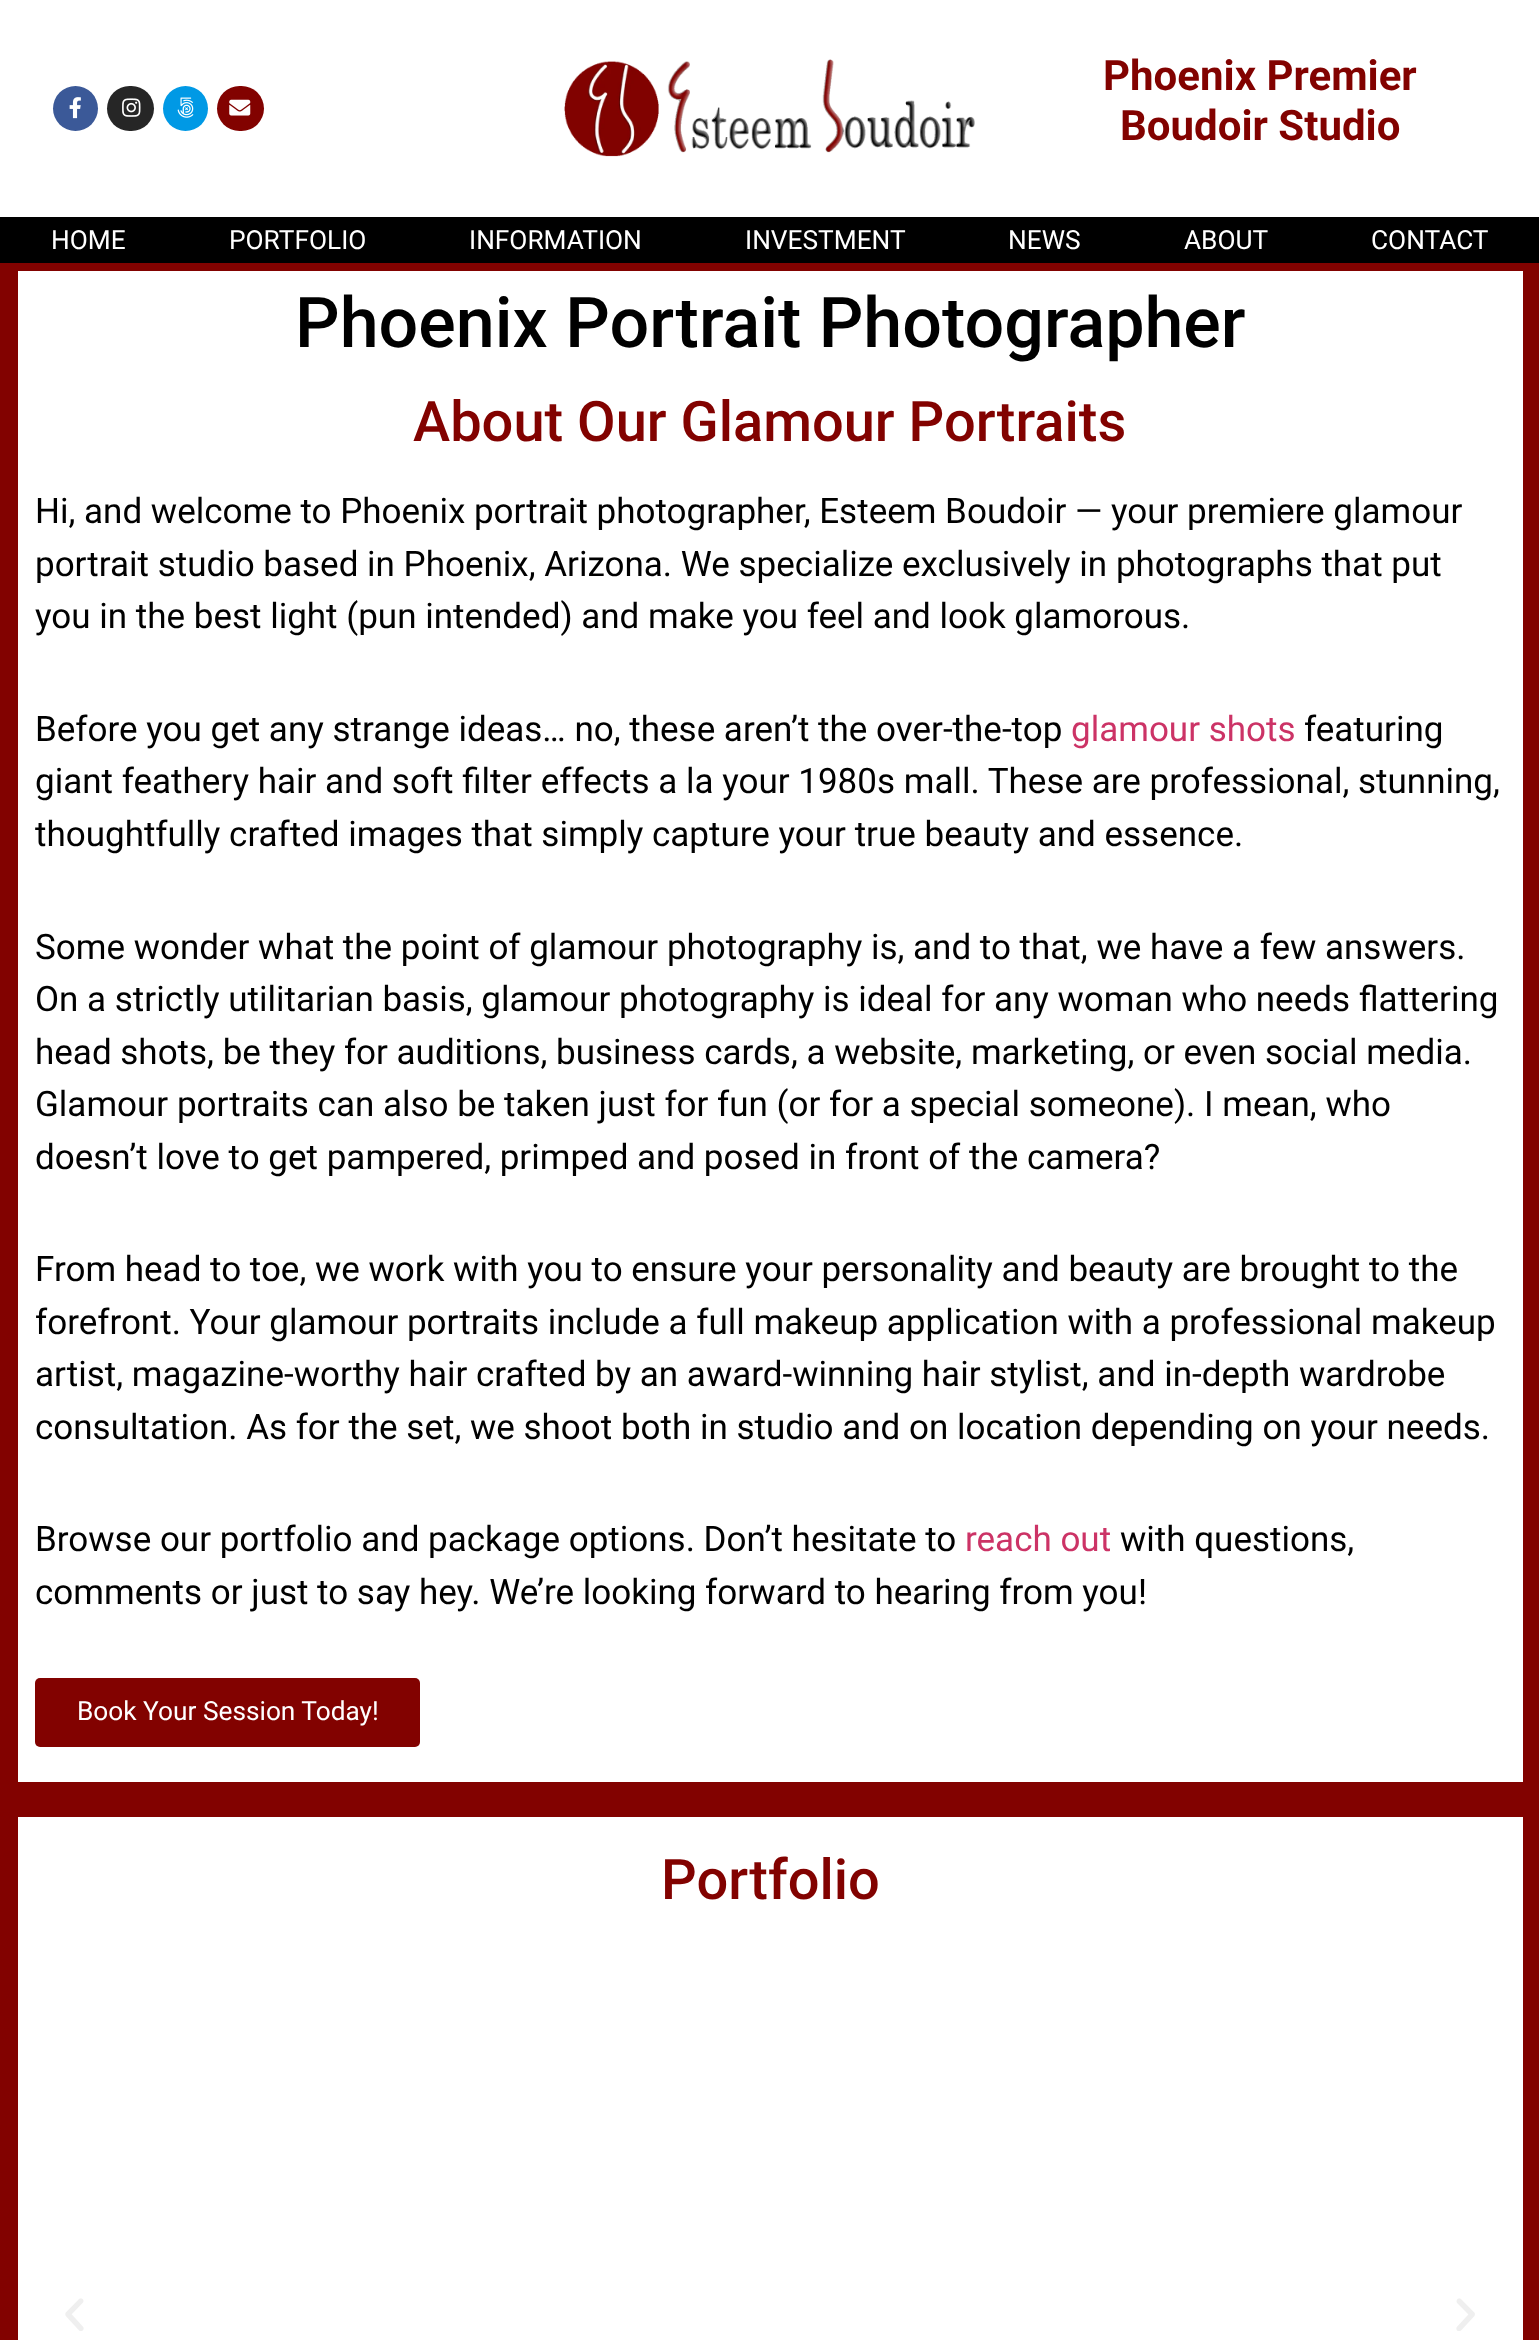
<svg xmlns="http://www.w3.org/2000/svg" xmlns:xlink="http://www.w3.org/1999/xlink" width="1539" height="2340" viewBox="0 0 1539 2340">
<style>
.cls-1{font:bold 42px Roboto;fill:#820200}
.cls-2{font:26.25px Roboto;fill:#ffffff}
.cls-3{font:500 70px Roboto;fill:#000000}
.cls-4{font:500 56px Roboto;fill:#820200}
.cls-5{font:35px Roboto;fill:#000000}
.cls-6{font:35px Roboto;fill:#cc3366}
</style>
<rect width="100%" height="100%" fill="#820200"/>
<rect fill="#ffffff" x="0" y="0" width="1539" height="217"/>
<circle fill="#3b5998" cx="75.5" cy="108.5" r="22.5"/>
<image xlink:href="image0.png" x="69" y="97" width="12" height="22"/>
<rect fill="#262626" x="107" y="86" width="47" height="45" rx="22.5"/>
<image xlink:href="image1.png" x="122" y="98" width="19" height="19"/>
<circle fill="#0099e5" cx="185.5" cy="108.5" r="22.5"/>
<image xlink:href="image2.png" x="177" y="97" width="17" height="21"/>
<rect fill="#820200" x="217" y="86" width="47" height="45" rx="22.5"/>
<image xlink:href="image3.png" x="229" y="99" width="22" height="17"/>
<image xlink:href="image4.png" x="564" y="59" width="411" height="98"/>
<rect fill="#000000" x="0" y="217" width="1539" height="46"/>
<rect fill="#ffffff" x="18" y="271" width="1505" height="1511"/>
<rect fill="#820200" x="35" y="1678" width="385" height="69" rx="5"/>
<rect fill="#ffffff" x="18" y="1817" width="1505" height="523"/>
<image xlink:href="image5.png" x="65" y="2298" width="19" height="33"/>
<image xlink:href="image6.png" x="1456" y="2298" width="19" height="33"/>
<text class="cls-1" x="1103" y="90">Phoenix Premier</text>
<text class="cls-1" x="1120" y="140">Boudoir Studio</text>
<text class="cls-2" x="51" y="249">HOME</text>
<text class="cls-2" x="229" y="249">PORTFOLIO</text>
<text class="cls-2" x="469" y="249">INFORMATION</text>
<text class="cls-2" x="745" y="249">INVESTMENT</text>
<text class="cls-2" x="1008" y="249">NEWS</text>
<text class="cls-2" x="1184" y="249">ABOUT</text>
<text class="cls-2" x="1371" y="249">CONTACT</text>
<text class="cls-3" x="295" y="347">Phoenix Portrait Photographer</text>
<text class="cls-4" x="413" y="441">About Our Glamour Portraits</text>
<text class="cls-5"><tspan x="35" y="523">Hi, and welcome to Phoenix portrait photographer, Esteem Boudoir — your premiere glamour</tspan><tspan x="35" y="576">portrait studio based in Phoenix, Arizona. We specialize exclusively in photographs that put</tspan><tspan x="35" y="628">you in the best light (pun intended) and make you feel and look glamorous.</tspan></text>
<text class="cls-5" x="35" y="741">Before you get any strange ideas… no, these aren’t the over-the-top</text>
<text class="cls-6" x="1071" y="741">glamour shots</text>
<text class="cls-5" x="1304" y="741">featuring</text>
<text class="cls-5"><tspan x="35" y="793">giant feathery hair and soft filter effects a la your 1980s mall. These are professional, stunning,</tspan><tspan x="35" y="846">thoughtfully crafted images that simply capture your true beauty and essence.</tspan></text>
<text class="cls-5"><tspan x="35" y="959">Some wonder what the point of glamour photography is, and to that, we have a few answers.</tspan><tspan x="35" y="1011">On a strictly utilitarian basis, glamour photography is ideal for any woman who needs flattering</tspan><tspan x="35" y="1064">head shots, be they for auditions, business cards, a website, marketing, or even social media.</tspan><tspan x="35" y="1116">Glamour portraits can also be taken just for fun (or for a special someone). I mean, who</tspan><tspan x="35" y="1169">doesn’t love to get pampered, primped and posed in front of the camera?</tspan></text>
<text class="cls-5"><tspan x="35" y="1281">From head to toe, we work with you to ensure your personality and beauty are brought to the</tspan><tspan x="35" y="1334">forefront. Your glamour portraits include a full makeup application with a professional makeup</tspan><tspan x="35" y="1386">artist, magazine-worthy hair crafted by an award-winning hair stylist, and in-depth wardrobe</tspan><tspan x="35" y="1439">consultation. As for the set, we shoot both in studio and on location depending on your needs.</tspan></text>
<text class="cls-5" x="35" y="1551">Browse our portfolio and package options. Don’t hesitate to</text>
<text class="cls-6" x="965" y="1551">reach out</text>
<text class="cls-5" x="1120" y="1551">with questions,</text>
<text class="cls-5" x="35" y="1604">comments or just to say hey. We’re looking forward to hearing from you!</text>
<text class="cls-2" x="77" y="1720">Book Your Session Today!</text>
<text class="cls-4" x="661" y="1899">Portfolio</text>
</svg>
